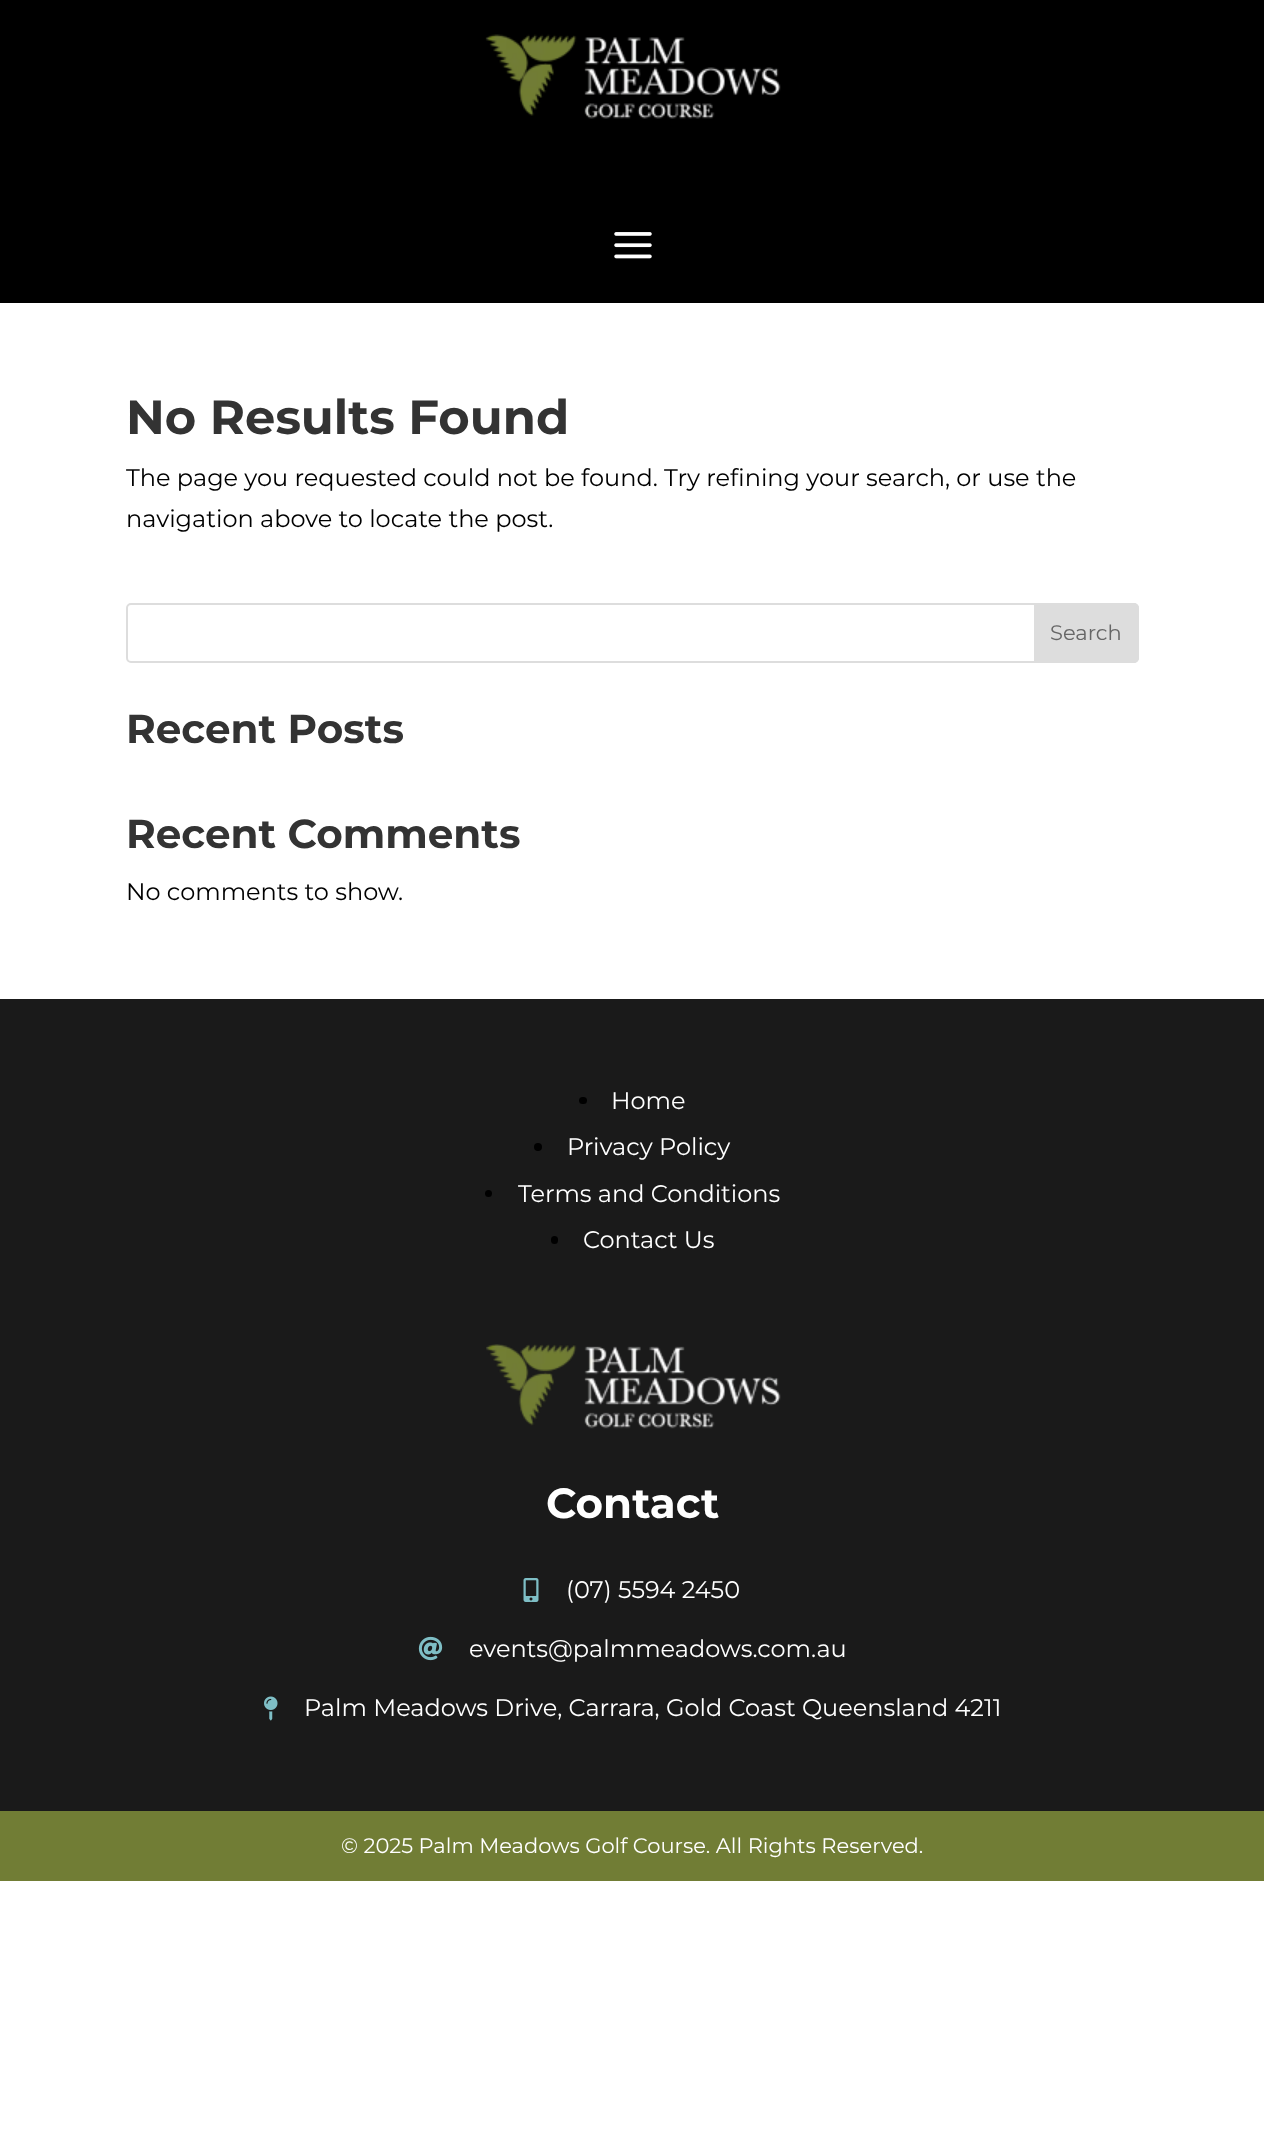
<svg xmlns="http://www.w3.org/2000/svg" xmlns:xlink="http://www.w3.org/1999/xlink" width="1264" height="2143" viewBox="0 0 1264 2143">
<style>
.cls-1{font:bold 48px Montserrat;fill:#333333}
.cls-2{font:24px Montserrat;fill:#000000}
.cls-3{font:21px Montserrat;fill:#666666}
.cls-4{font:bold 40.5px Montserrat;fill:#333333}
.cls-5{font:24px Montserrat;fill:#ffffff}
.cls-6{font:bold 42px Montserrat;fill:#ffffff}
.cls-7{font:21px Montserrat;fill:#ffffff}
</style>
<rect width="100%" height="100%" fill="#ffffff"/>
<rect fill="#000000" x="0" y="0" width="1264" height="303"/>
<image xlink:href="image0.png" x="485" y="34" width="296" height="85"/>
<image xlink:href="image1.png" x="614" y="232" width="38" height="27"/>
<rect fill="none" stroke="#dddddd" stroke-width="2" x="127" y="604" width="1011" height="58" rx="4"/>
<path fill="#dddddd" stroke="#dddddd" stroke-width="2" d="M1035 604H1134C1136 604 1138 606 1138 608V658C1138 660 1136 662 1134 662H1035Z"/>
<rect fill="#1a1a1a" x="0" y="999" width="1264" height="812"/>
<rect fill="#000000" x="579" y="1097" width="8" height="7" rx="3.5"/>
<circle fill="#000000" cx="538" cy="1147" r="4"/>
<circle fill="#000000" cx="488.5" cy="1193.5" r="3.5"/>
<rect fill="#000000" x="551" y="1236" width="7" height="8" rx="3.5"/>
<image xlink:href="image2.png" x="486" y="1344" width="295" height="85"/>
<image xlink:href="image3.png" x="523" y="1578" width="16" height="24"/>
<image xlink:href="image4.png" x="418" y="1636" width="25" height="25"/>
<image xlink:href="image5.png" x="264" y="1696" width="14" height="25"/>
<rect fill="#717d35" x="0" y="1811" width="1264" height="70"/>
<text class="cls-1" x="126" y="434">No Results Found</text>
<text class="cls-2"><tspan x="126" y="486">The page you requested could not be found. Try refining your search, or use the</tspan><tspan x="126" y="527">navigation above to locate the post.</tspan></text>
<text class="cls-3" x="1050" y="640">Search</text>
<text class="cls-4" x="126" y="743">Recent Posts</text>
<text class="cls-4" x="126" y="848">Recent Comments</text>
<text class="cls-2" x="126" y="900">No comments to show.</text>
<text class="cls-5" x="611" y="1109">Home</text>
<text class="cls-5" x="567" y="1155">Privacy Policy</text>
<text class="cls-5" x="518" y="1202">Terms and Conditions</text>
<text class="cls-5" x="583" y="1248">Contact Us</text>
<text class="cls-6" x="546" y="1518">Contact</text>
<text class="cls-5" x="566" y="1598">(07) 5594 2450</text>
<text class="cls-5" x="469" y="1657">events@palmmeadows.com.au</text>
<text class="cls-5" x="304" y="1716">Palm Meadows Drive, Carrara, Gold Coast Queensland 4211</text>
<text class="cls-7" x="341" y="1853">© 2025 Palm Meadows Golf Course. All Rights Reserved.</text>
</svg>
